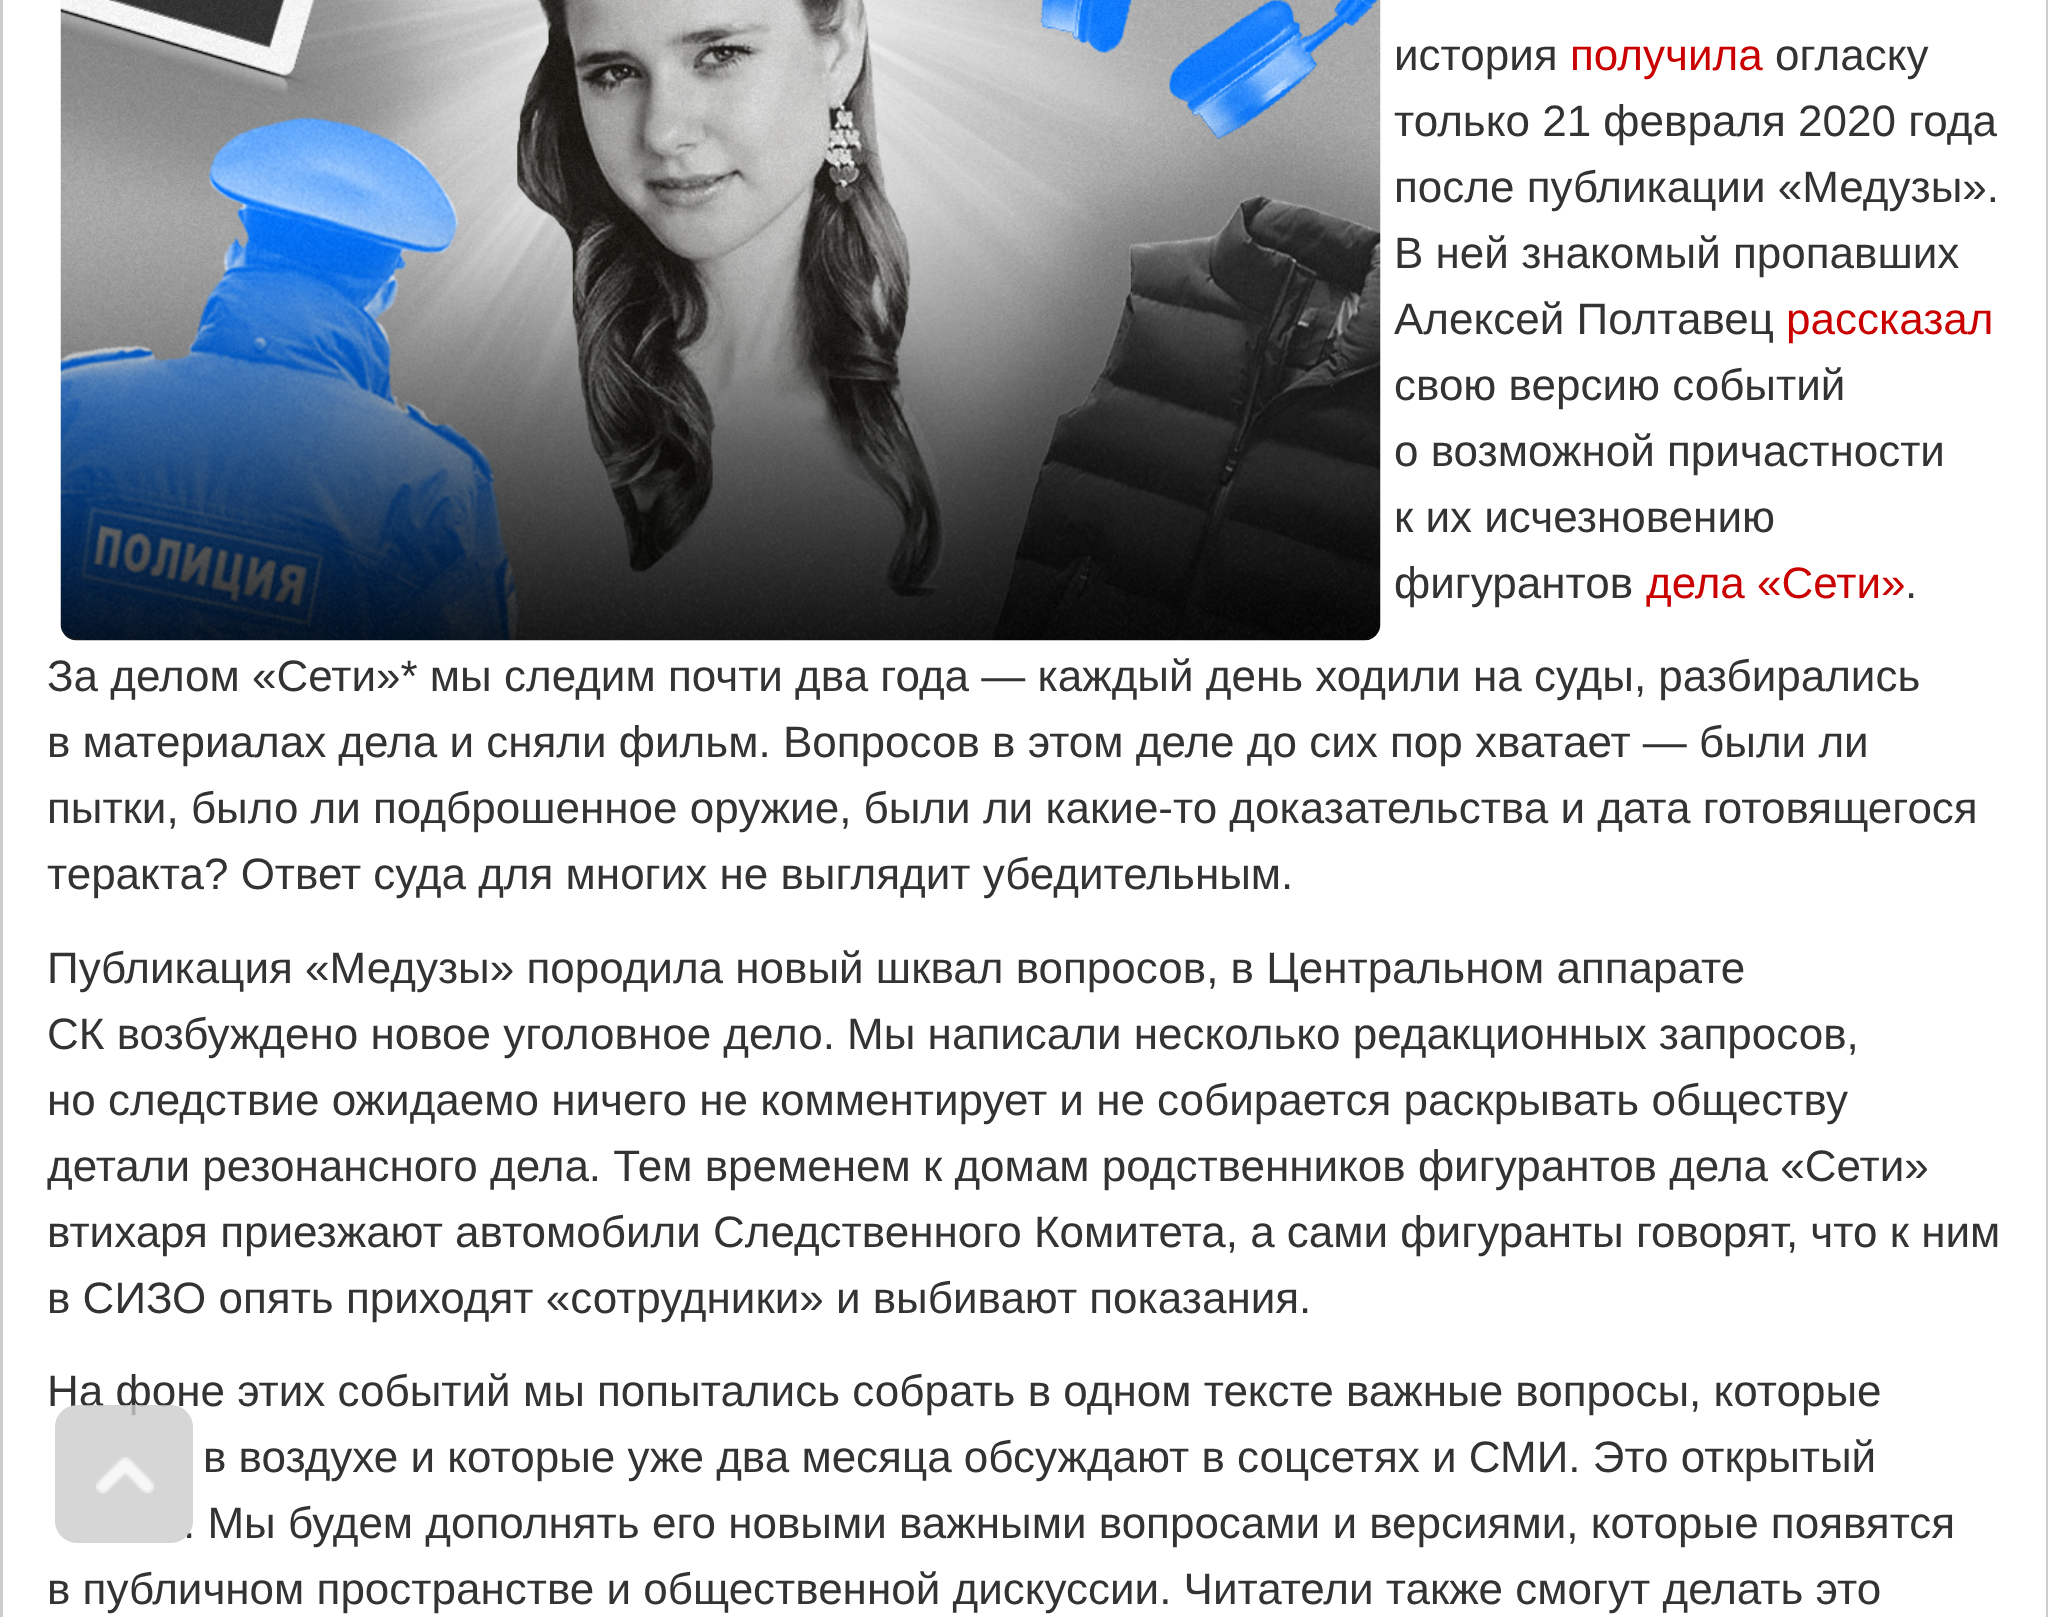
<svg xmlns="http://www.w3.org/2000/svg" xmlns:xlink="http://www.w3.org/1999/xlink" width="2048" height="1617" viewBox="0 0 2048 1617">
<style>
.cls-1{font:44px Liberation Sans;fill:#333333}
.cls-2{font:44px Liberation Sans;fill:#ca0000}
</style>
<rect width="100%" height="100%" fill="#ffffff"/>
<rect fill="none" stroke="#cccccc" stroke-width="3" x="1.5" y="-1.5" width="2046" height="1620"/>
<image xlink:href="image0.png" x="60" y="0" width="1321" height="641"/>
<text class="cls-1" x="1394" y="70">история</text>
<text class="cls-2" x="1570" y="70">получила</text>
<text class="cls-1" x="1775" y="70">огласку</text>
<text class="cls-1"><tspan x="1394" y="136">только 21 февраля 2020 года</tspan><tspan x="1394" y="202">после публикации «Медузы».</tspan><tspan x="1394" y="268">В ней знакомый пропавших</tspan><tspan x="1394" y="334">Алексей Полтавец</tspan></text>
<text class="cls-2" x="1786" y="334">рассказал</text>
<text class="cls-1"><tspan x="1394" y="400">свою версию событий</tspan><tspan x="1394" y="466">о возможной причастности</tspan><tspan x="1394" y="532">к их исчезновению</tspan><tspan x="1394" y="598">фигурантов</tspan></text>
<text class="cls-2" x="1646" y="598">дела «Сети»</text>
<text class="cls-1" x="1905" y="598">.</text>
<text class="cls-1"><tspan x="47" y="691">За делом «Сети»* мы следим почти два года — каждый день ходили на суды, разбирались</tspan><tspan x="47" y="757">в материалах дела и сняли фильм. Вопросов в этом деле до сих пор хватает — были ли</tspan><tspan x="47" y="823">пытки, было ли подброшенное оружие, были ли какие-то доказательства и дата готовящегося</tspan><tspan x="47" y="889">теракта? Ответ суда для многих не выглядит убедительным.</tspan></text>
<text class="cls-1"><tspan x="47" y="983">Публикация «Медузы» породила новый шквал вопросов, в Центральном аппарате</tspan><tspan x="47" y="1049">СК возбуждено новое уголовное дело. Мы написали несколько редакционных запросов,</tspan><tspan x="47" y="1115">но следствие ожидаемо ничего не комментирует и не собирается раскрывать обществу</tspan><tspan x="47" y="1181">детали резонансного дела. Тем временем к домам родственников фигурантов дела «Сети»</tspan><tspan x="47" y="1247">втихаря приезжают автомобили Следственного Комитета, а сами фигуранты говорят, что к ним</tspan><tspan x="47" y="1313">в СИЗО опять приходят «сотрудники» и выбивают показания.</tspan></text>
<text class="cls-1" x="47" y="1406">На фоне этих событий мы попытались собрать в одном тексте важные вопросы, которые</text>
<text class="cls-1" x="203" y="1472">в воздухе и которые уже два месяца обсуждают в соцсетях и СМИ. Это открытый</text>
<text class="cls-1" x="183" y="1538">. Мы будем дополнять его новыми важными вопросами и версиями, которые появятся</text>
<text class="cls-1" x="47" y="1604">в публичном пространстве и общественной дискуссии. Читатели также смогут делать это</text>
<rect fill="#cccccc" fill-opacity="0.8" x="55" y="1405" width="138" height="138" rx="22"/>
<image xlink:href="image1.png" x="96" y="1457" width="58" height="37"/>
</svg>
